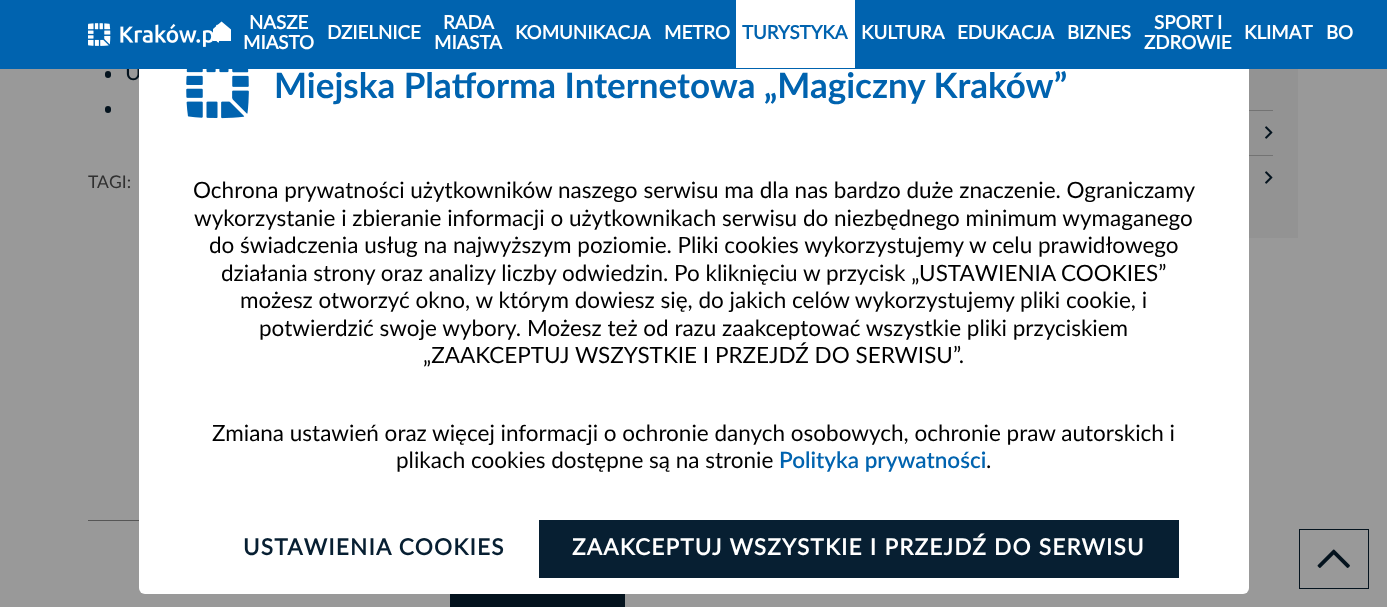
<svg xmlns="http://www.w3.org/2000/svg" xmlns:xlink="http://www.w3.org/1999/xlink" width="1387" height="607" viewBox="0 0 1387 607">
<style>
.cls-1{font:22.5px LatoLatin;fill:#04131e}
.cls-2{font:17.5px LatoLatin;fill:#303030}
.cls-3{font:bold 18.75px 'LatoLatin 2';fill:#ffffff}
.cls-4{font:bold 18.75px 'LatoLatin 2';fill:#0063af}
.cls-5{font:bold 35px LatoLatin;fill:#0063af}
.cls-6{font:22.5px LatoLatin;fill:#000000}
.cls-7{font:600 22.5px LatoLatin;fill:#0063af}
.cls-8{font:bold 22.5px 'LatoLatin 2';letter-spacing:1.25px;fill:#071f32}
.cls-9{font:bold 22.5px 'LatoLatin 2';letter-spacing:1.25px;fill:#ffffff}
</style>
<defs>
<clipPath id="clip1"><rect x="213" y="21" width="18" height="20"/></clipPath>
</defs>
<rect width="100%" height="100%" fill="#999999"/>
<rect fill="#04131e" x="105" y="71" width="6" height="7" rx="3"/>
<rect fill="#04131e" x="105" y="106" width="6" height="7" rx="3"/>
<rect fill="#565656" x="88" y="520" width="51" height="1"/>
<rect fill="#04131e" x="450" y="594" width="175" height="13"/>
<rect fill="#939393" x="1249" y="69" width="49" height="169"/>
<rect fill="#737373" x="1249" y="110" width="24" height="1"/>
<rect fill="#737373" x="1249" y="155" width="24" height="1"/>
<image xlink:href="image1.png" x="1265" y="126" width="8" height="13"/>
<image xlink:href="image1.png" x="1265" y="171" width="8" height="13"/>
<rect fill="none" stroke="#04131e" x="1299.5" y="529.5" width="69" height="59"/>
<image xlink:href="image3.png" x="1317" y="549" width="33" height="19"/>
<text class="cls-1" x="125" y="80">U</text>
<text class="cls-2" x="88" y="188">TAGI:</text>
<rect fill="#ffffff" x="139" y="14" width="1110" height="580" rx="6"/>
<rect fill="#0063af" x="0" y="0" width="1387" height="69"/>
<text class="cls-3" x="1326" y="39">BO</text>
<text class="cls-3" x="1244" y="39">KLIMAT</text>
<text class="cls-3" x="1144" y="49">ZDROWIE</text>
<text class="cls-3" x="1154" y="29">SPORT I</text>
<text class="cls-3" x="1067" y="39">BIZNES</text>
<text class="cls-3" x="957" y="39">EDUKACJA</text>
<text class="cls-3" x="861" y="39">KULTURA</text>
<rect fill="#ffffff" x="736" y="0" width="119" height="68"/>
<text class="cls-4" x="742" y="39">TURYSTYKA</text>
<text class="cls-3" x="664" y="39">METRO</text>
<text class="cls-3" x="515" y="39">KOMUNIKACJA</text>
<text class="cls-3" x="434" y="49">MIASTA</text>
<text class="cls-3" x="443" y="29">RADA</text>
<text class="cls-3" x="327" y="39">DZIELNICE</text>
<text class="cls-3" x="243" y="49">MIASTO</text>
<text class="cls-3" x="249" y="29">NASZE</text>
<image xlink:href="image0.png" x="88" y="23" width="131" height="24"/>
<g clip-path="url(#clip1)">
<path fill="#ffffff" d="M231 41.5H212.5V29.5L221.5 21.5L231 29.5Z"/>
</g>
<image xlink:href="image2.png" x="186" y="69" width="63" height="50"/>
<text class="cls-5" x="274" y="98">Miejska Platforma Internetowa „Magiczny Kraków”</text>
<text class="cls-6" x="193" y="198">Ochrona prywatności użytkowników naszego serwisu ma dla nas bardzo duże znaczenie. Ograniczamy</text>
<text class="cls-6" x="194" y="226">wykorzystanie i zbieranie informacji o użytkownikach serwisu do niezbędnego minimum wymaganego</text>
<text class="cls-6" x="209" y="253">do świadczenia usług na najwyższym poziomie. Pliki cookies wykorzystujemy w celu prawidłowego</text>
<text class="cls-6" x="221" y="281">działania strony oraz analizy liczby odwiedzin. Po kliknięciu w przycisk „USTAWIENIA COOKIES”</text>
<text class="cls-6" x="240" y="308">możesz otworzyć okno, w którym dowiesz się, do jakich celów wykorzystujemy pliki cookie, i</text>
<text class="cls-6" x="259" y="336">potwierdzić swoje wybory. Możesz też od razu zaakceptować wszystkie pliki przyciskiem</text>
<text class="cls-6" x="423" y="363">„ZAAKCEPTUJ WSZYSTKIE I PRZEJDŹ DO SERWISU”.</text>
<text class="cls-6" x="212" y="441">Zmiana ustawień oraz więcej informacji o ochronie danych osobowych, ochronie praw autorskich i</text>
<text class="cls-6" x="396" y="468">plikach cookies dostępne są na stronie</text>
<text class="cls-7" x="779" y="468">Polityka prywatności</text>
<text class="cls-6" x="986" y="468">.</text>
<text class="cls-8" x="243" y="555">USTAWIENIA COOKIES</text>
<rect fill="#071f32" x="539" y="520" width="640" height="58"/>
<text class="cls-9" x="572" y="555">ZAAKCEPTUJ WSZYSTKIE I PRZEJDŹ DO SERWISU</text>
</svg>
